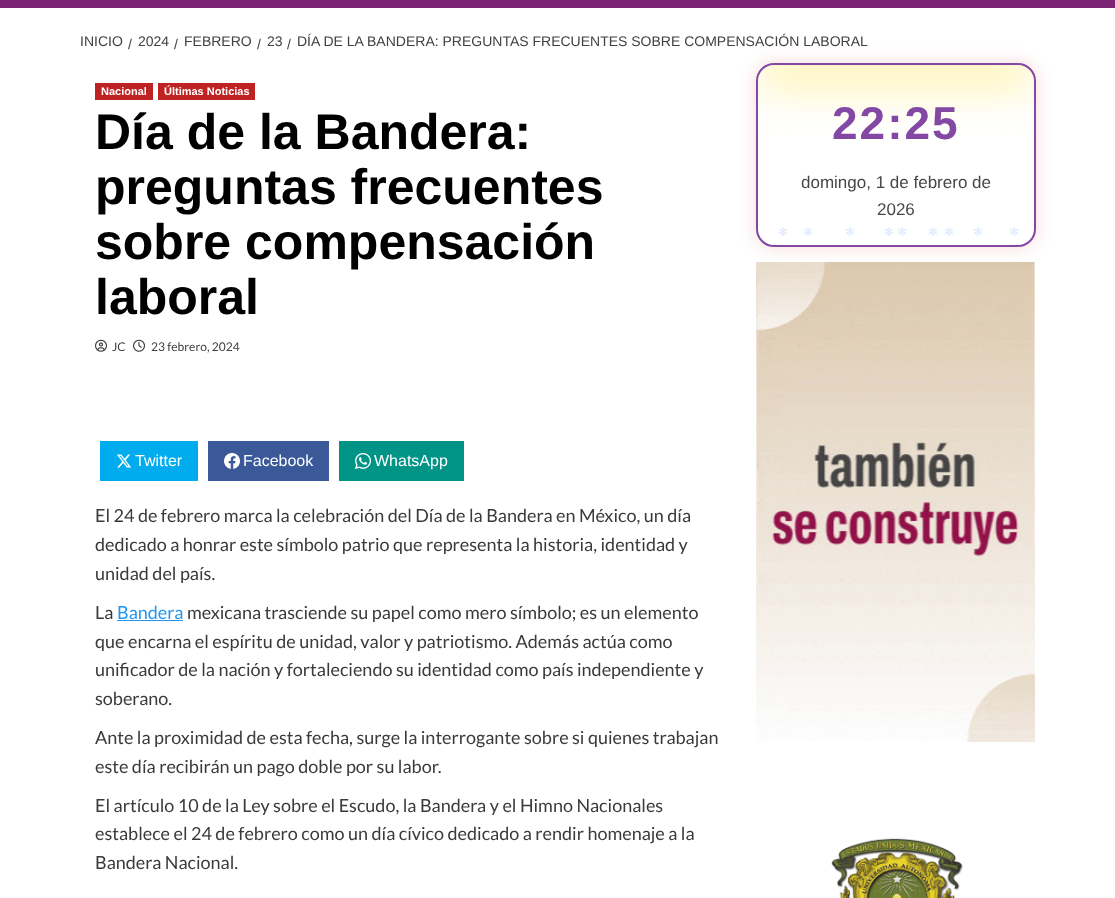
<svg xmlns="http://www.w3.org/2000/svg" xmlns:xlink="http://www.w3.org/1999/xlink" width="1115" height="898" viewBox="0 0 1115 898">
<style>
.cls-1{font:14px Liberation Sans;fill:#404040}
.cls-2{font:bold 11px Liberation Sans;fill:#ffffff}
.cls-3{font:bold 50px Liberation Sans;fill:#000000}
.cls-4{font:12px Lato;fill:#404040}
.cls-5{font:16px Liberation Sans;fill:#ffffff}
.cls-6{font:18px Lato;fill:#3a3a3a}
.cls-7{font:18px Lato;fill:#2196f3}
.cls-8{font:bold 46px Liberation Sans;letter-spacing:2px;fill:#8248a3}
.cls-9{font:17px Liberation Sans;fill:#474747}
.cls-10{font:12px DejaVu Sans;fill:#d9e7ff}
</style>
<defs>
<clipPath id="clip1"><rect x="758" y="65" width="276" height="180" rx="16"/></clipPath>
</defs>
<rect width="100%" height="100%" fill="#ffffff"/>
<rect fill="#7d2376" x="0" y="0" width="1115" height="8"/>
<rect fill="#be2222" x="95" y="83" width="58" height="17"/>
<rect fill="#be2222" x="158" y="83" width="97" height="17"/>
<image xlink:href="image0.png" x="95" y="339" width="12" height="13"/>
<image xlink:href="image1.png" x="133" y="339" width="12" height="13"/>
<rect fill="#00aced" x="100" y="441" width="98" height="40"/>
<image xlink:href="image2.png" x="117" y="454" width="15" height="14"/>
<rect fill="#3b5998" x="208" y="441" width="121" height="40"/>
<image xlink:href="image3.png" x="224" y="453" width="16" height="16"/>
<rect fill="#009487" x="339" y="441" width="125" height="40"/>
<image xlink:href="image4.png" x="355" y="453" width="16" height="16"/>
<rect fill="#2196f3" x="117" y="620" width="66" height="1"/>
<rect fill="#c80000" fill-opacity="0.15" filter="blur(9px)" x="756" y="63" width="280" height="184" rx="18"/>
<rect fill="#ffffff" stroke="#8248a3" stroke-width="2" x="757" y="64" width="278" height="182" rx="17"/>
<g clip-path="url(#clip1)">
<rect fill="#ffd700" fill-opacity="0.23" filter="blur(20px)" x="758" y="35" width="276" height="60"/>
</g>
<image xlink:href="image5.png" x="756" y="262" width="279" height="480"/>
<image xlink:href="image6.png" x="830" y="838" width="133" height="60"/>
<text class="cls-1" x="80" y="46">INICIO</text>
<text class="cls-1" x="128" y="49">/</text>
<text class="cls-1" x="138" y="46">2024</text>
<text class="cls-1" x="174" y="49">/</text>
<text class="cls-1" x="184" y="46">FEBRERO</text>
<text class="cls-1" x="257" y="49">/</text>
<text class="cls-1" x="267" y="46">23</text>
<text class="cls-1" x="287" y="49">/</text>
<text class="cls-1" x="297" y="46">DÍA DE LA BANDERA: PREGUNTAS FRECUENTES SOBRE COMPENSACIÓN LABORAL</text>
<text class="cls-2" x="101" y="95">Nacional</text>
<text class="cls-2" x="164" y="95">Últimas Noticias</text>
<text class="cls-3"><tspan x="95" y="149">Día de la Bandera:</tspan><tspan x="95" y="204">preguntas frecuentes</tspan><tspan x="95" y="259">sobre compensación</tspan><tspan x="95" y="314">laboral</tspan></text>
<text class="cls-4" x="112" y="351">JC</text>
<text class="cls-4" x="151" y="351">23 febrero, 2024</text>
<text class="cls-5" x="135" y="466">Twitter</text>
<text class="cls-5" x="243" y="466">Facebook</text>
<text class="cls-5" x="374" y="466">WhatsApp</text>
<text class="cls-6"><tspan x="95" y="522">El 24 de febrero marca la celebración del Día de la Bandera en México, un día</tspan><tspan x="95" y="551">dedicado a honrar este símbolo patrio que representa la historia, identidad y</tspan><tspan x="95" y="580">unidad del país.</tspan></text>
<text class="cls-6" x="95" y="619">La</text>
<text class="cls-7" x="117" y="619">Bandera</text>
<text class="cls-6" x="187" y="619">mexicana trasciende su papel como mero símbolo; es un elemento</text>
<text class="cls-6"><tspan x="95" y="648">que encarna el espíritu de unidad, valor y patriotismo. Además actúa como</tspan><tspan x="95" y="676">unificador de la nación y fortaleciendo su identidad como país independiente y</tspan><tspan x="95" y="705">soberano.</tspan></text>
<text class="cls-6"><tspan x="95" y="744">Ante la proximidad de esta fecha, surge la interrogante sobre si quienes trabajan</tspan><tspan x="95" y="773">este día recibirán un pago doble por su labor.</tspan></text>
<text class="cls-6"><tspan x="95" y="812">El artículo 10 de la Ley sobre el Escudo, la Bandera y el Himno Nacionales</tspan><tspan x="95" y="840">establece el 24 de febrero como un día cívico dedicado a rendir homenaje a la</tspan><tspan x="95" y="869">Bandera Nacional.</tspan></text>
<text class="cls-8" x="832" y="139">22:25</text>
<text class="cls-9" x="801" y="188">domingo, 1 de febrero de</text>
<text class="cls-9" x="877" y="215">2026</text>
<text class="cls-10" x="778" y="236">❄</text>
<text class="cls-10" x="803" y="236">❄</text>
<text class="cls-10" x="845" y="236">❄</text>
<text class="cls-10" x="884" y="236">❄</text>
<text class="cls-10" x="897" y="236">❄</text>
<text class="cls-10" x="928" y="236">❄</text>
<text class="cls-10" x="944" y="236">❄</text>
<text class="cls-10" x="973" y="236">❄</text>
<text class="cls-10" x="1009" y="236">❄</text>
</svg>
